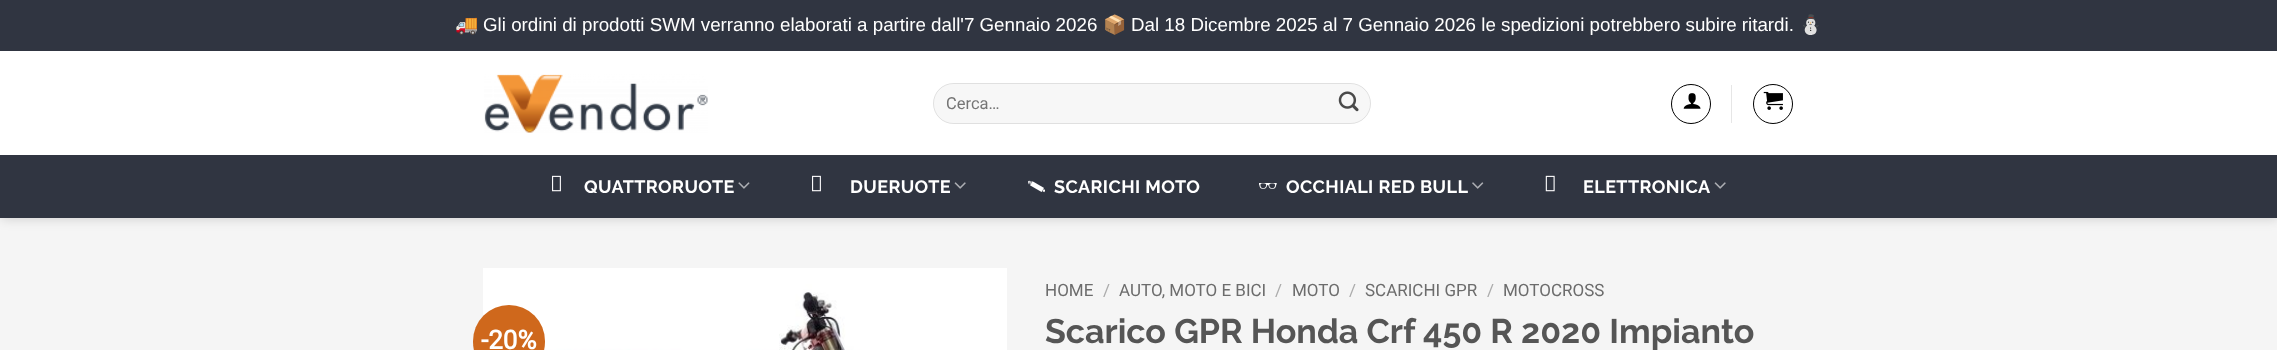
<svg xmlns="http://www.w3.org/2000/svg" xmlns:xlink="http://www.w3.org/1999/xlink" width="2277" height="350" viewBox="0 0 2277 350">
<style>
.cls-1{font:18.75px Noto Color Emoji;fill:#ffffff}
.cls-2{font:18.75px Liberation Sans;fill:#ffffff}
.cls-3{font:16.5px Roboto;fill:#757575}
.cls-4{font:100 18px Raleway;letter-spacing:0.4px;fill:#ffffff}
.cls-5{font:bold 26px Roboto;fill:#ffffff}
.cls-6{font:17px Roboto;fill:#6c6c6c}
.cls-7{font:17px Roboto;fill:#ababab}
.cls-8{font:100 34px Raleway;fill:#555555}
</style>
<rect width="100%" height="100%" fill="#f5f5f5"/>
<rect fill="#000000" fill-opacity="0.15" filter="blur(6px)" x="1" y="53" width="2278" height="166"/>
<rect fill="#303541" x="0" y="0" width="2277" height="51"/>
<rect fill="#ffffff" x="0" y="51" width="2277" height="104"/>
<image xlink:href="image0.png" x="484" y="74" width="224" height="59"/>
<rect fill="#f7f7f7" x="933" y="83" width="438" height="41" rx="20.5"/>
<rect fill="none" stroke="#000000" stroke-opacity="0.09" x="933.5" y="83.5" width="437" height="40" rx="20"/>
<image xlink:href="image1.png" x="1338" y="91" width="21" height="21"/>
<circle fill="none" stroke="#000000" cx="1691" cy="104" r="19.5"/>
<image xlink:href="image2.png" x="1683" y="93" width="18" height="16"/>
<rect fill="#e6e6e6" x="1731" y="85" width="1" height="38"/>
<circle fill="none" stroke="#000000" cx="1773" cy="104" r="19.5"/>
<image xlink:href="image3.png" x="1763" y="91" width="20" height="19"/>
<rect fill="#303541" x="0" y="155" width="2277" height="63"/>
<rect fill="#333742" x="483" y="155" width="1312" height="1"/>
<image xlink:href="image4.png" x="552" y="175" width="9" height="17"/>
<image xlink:href="image5.png" x="738" y="182" width="12" height="7"/>
<image xlink:href="image4.png" x="812" y="175" width="9" height="17"/>
<image xlink:href="image6.png" x="954" y="182" width="12" height="7"/>
<image xlink:href="image7.png" x="1028" y="180" width="17" height="13"/>
<image xlink:href="image8.png" x="1259" y="183" width="18" height="6"/>
<image xlink:href="image9.png" x="1472" y="182" width="12" height="7"/>
<image xlink:href="image10.png" x="1545" y="175" width="10" height="17"/>
<image xlink:href="image6.png" x="1714" y="182" width="12" height="7"/>
<image xlink:href="image11.png" x="483" y="268" width="524" height="82"/>
<rect fill="#cf681c" x="473" y="305" width="72" height="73" rx="36"/>
<text class="cls-1" x="455" y="31">🚚</text>
<text class="cls-2" x="483" y="31">Gli ordini di prodotti SWM verranno elaborati a partire dall'7 Gennaio 2026</text>
<text class="cls-1" x="1103" y="31">📦</text>
<text class="cls-2" x="1131" y="31">Dal 18 Dicembre 2025 al 7 Gennaio 2026 le spedizioni potrebbero subire ritardi.</text>
<text class="cls-1" x="1799" y="31">⛄</text>
<text class="cls-3" x="946" y="109">Cerca…</text>
<text class="cls-4" x="584" y="193">QUATTRORUOTE</text>
<text class="cls-4" x="850" y="193">DUERUOTE</text>
<text class="cls-4" x="1054" y="193">SCARICHI MOTO</text>
<text class="cls-4" x="1286" y="193">OCCHIALI RED BULL</text>
<text class="cls-4" x="1583" y="193">ELETTRONICA</text>
<text class="cls-5" x="481" y="349">-20%</text>
<text class="cls-6" x="1045" y="296">HOME</text>
<text class="cls-7" x="1103" y="296">/</text>
<text class="cls-6" x="1119" y="296">AUTO, MOTO E BICI</text>
<text class="cls-7" x="1275" y="296">/</text>
<text class="cls-6" x="1292" y="296">MOTO</text>
<text class="cls-7" x="1349" y="296">/</text>
<text class="cls-6" x="1365" y="296">SCARICHI GPR</text>
<text class="cls-7" x="1487" y="296">/</text>
<text class="cls-6" x="1503" y="296">MOTOCROSS</text>
<text class="cls-8" x="1045" y="343">Scarico GPR Honda Crf 450 R 2020 Impianto</text>
</svg>
